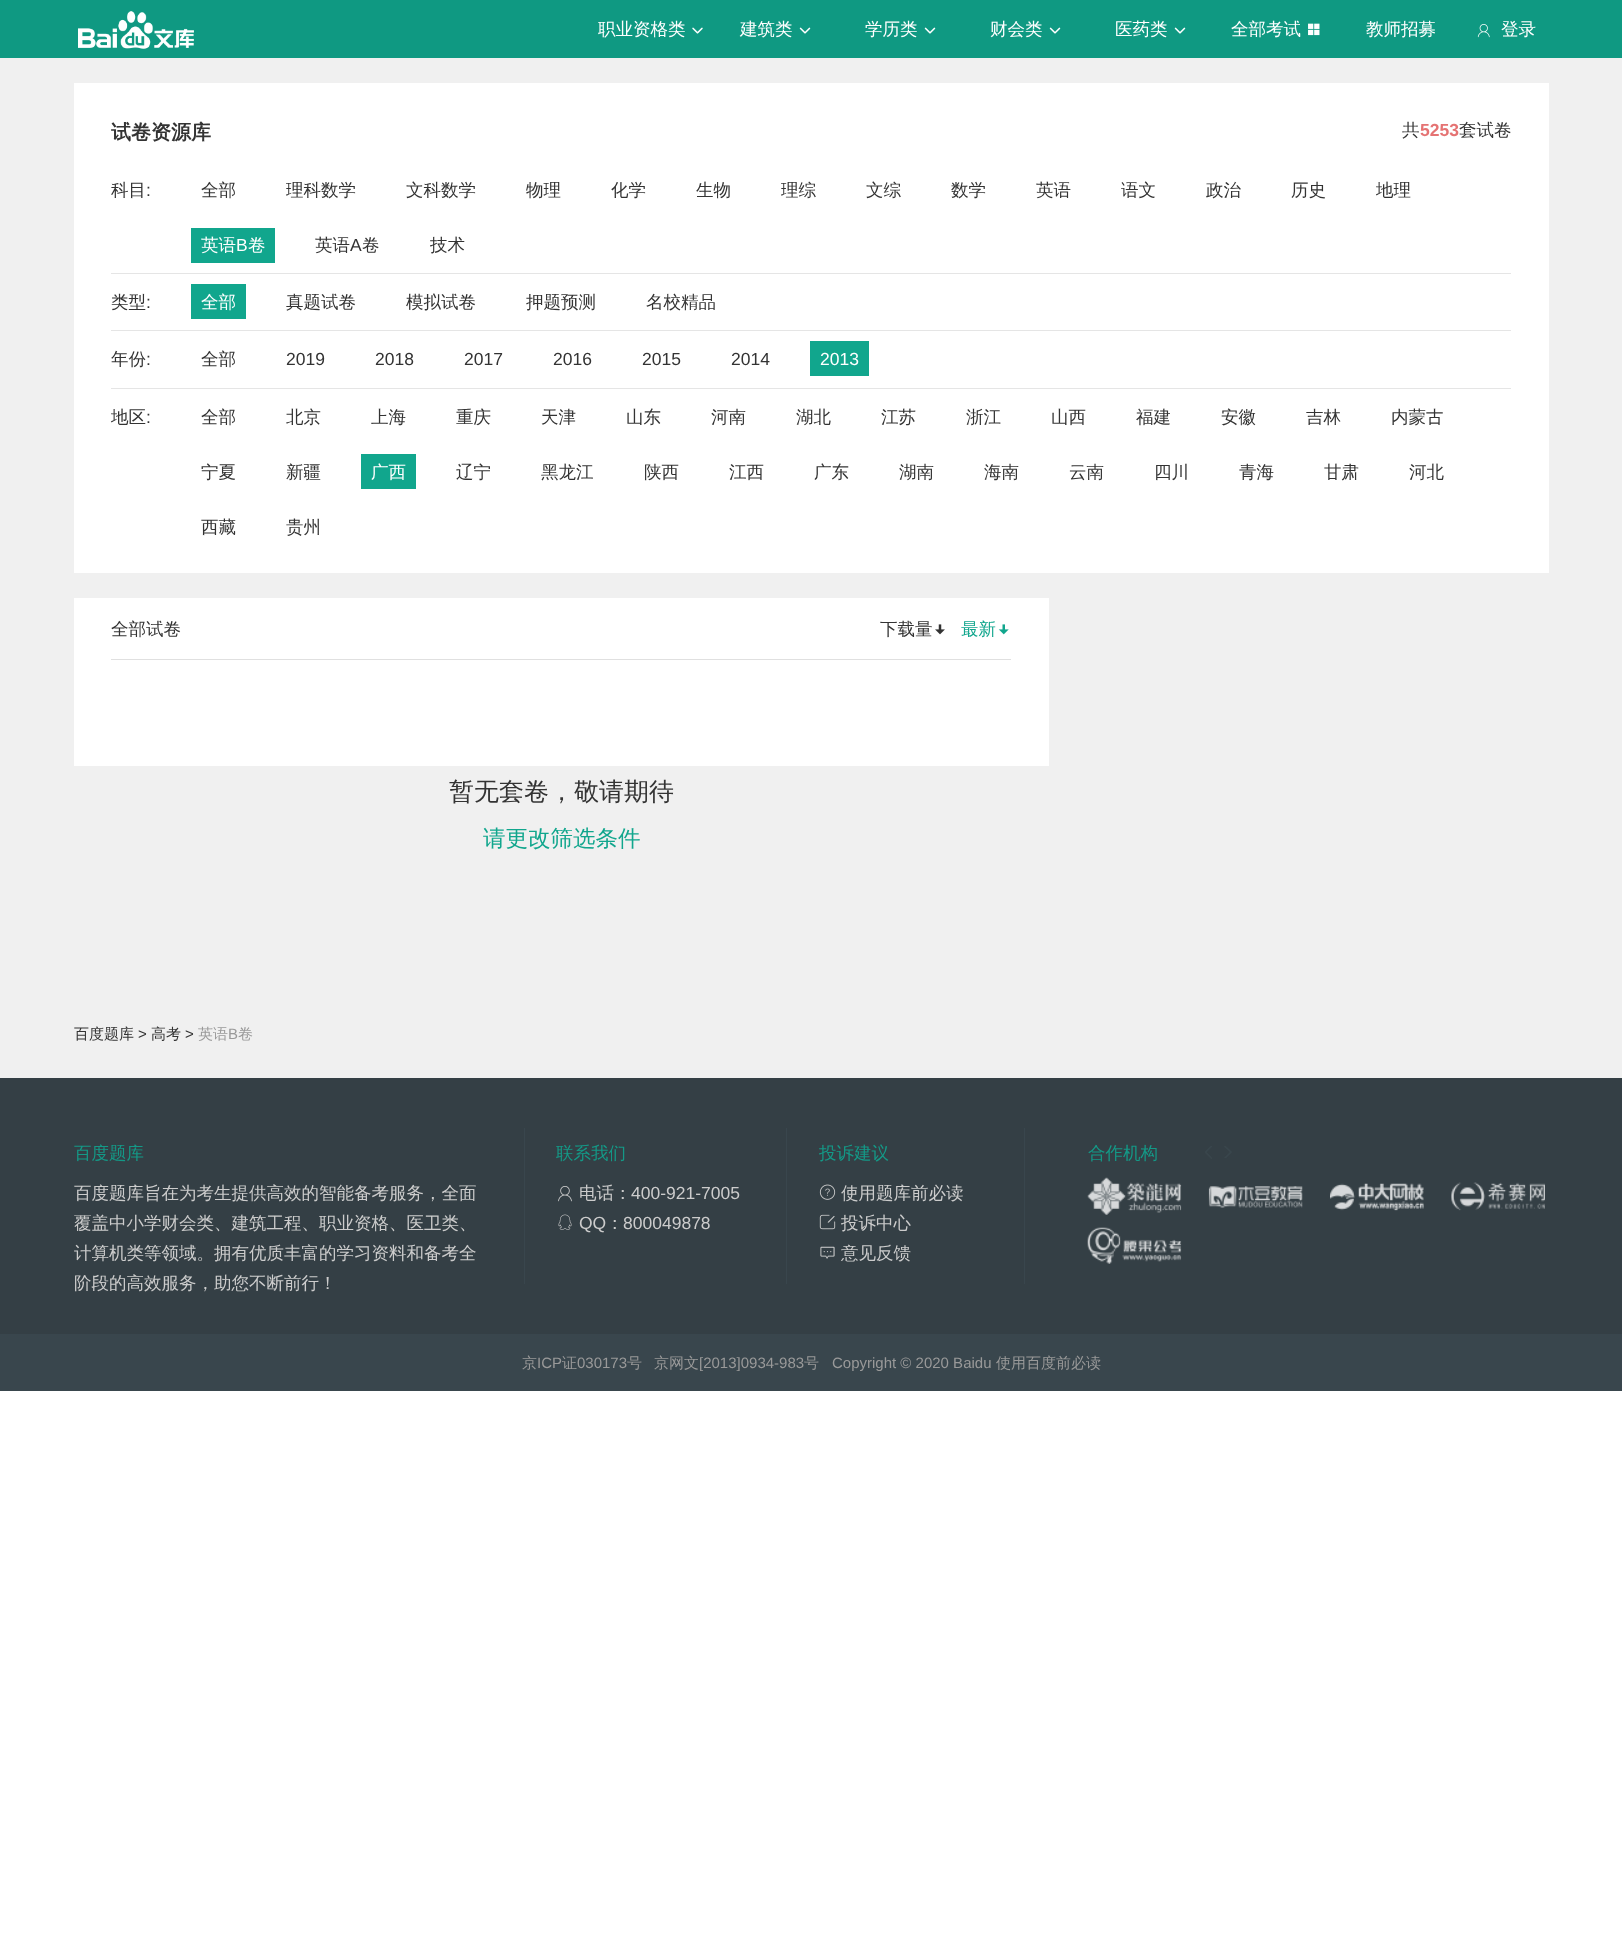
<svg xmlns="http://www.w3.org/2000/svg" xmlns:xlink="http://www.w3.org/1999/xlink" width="1622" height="1959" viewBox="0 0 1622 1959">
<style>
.cls-1{font:500 17.5px WenQuanYi Zen Hei;fill:#ffffff}
.cls-2{font:bold 20px WenQuanYi Zen Hei;fill:#333333}
.cls-3{font:500 17.5px WenQuanYi Zen Hei;fill:#333333}
.cls-4{font:bold 17.5px Liberation Sans;fill:#e57373}
.cls-5{font:17.5px Liberation Sans;fill:#333333}
.cls-6{font:17.5px Liberation Sans;fill:#ffffff}
.cls-7{font:500 17.5px WenQuanYi Zen Hei;fill:#11a68d}
.cls-8{font:500 25px WenQuanYi Zen Hei;fill:#333333}
.cls-9{font:500 22.5px WenQuanYi Zen Hei;fill:#11a68d}
.cls-10{font:500 15px WenQuanYi Zen Hei;fill:#333333}
.cls-11{font:15px Liberation Sans;fill:#333333}
.cls-12{font:500 15px WenQuanYi Zen Hei;fill:#999999}
.cls-13{font:15px Liberation Sans;fill:#999999}
.cls-14{font:500 17.5px WenQuanYi Zen Hei;fill:#149987}
.cls-15{font:500 17.5px WenQuanYi Zen Hei;fill:#cccccc}
.cls-16{font:17.5px Liberation Sans;fill:#cccccc}
</style>
<rect width="100%" height="100%" fill="#ffffff"/>
<rect fill="#0f9982" x="0" y="0" width="1622" height="58"/>
<image xlink:href="image0.png" x="78" y="11" width="116" height="38"/>
<image xlink:href="image1.png" x="692" y="27" width="11" height="7"/>
<image xlink:href="image2.png" x="799" y="27" width="12" height="7"/>
<image xlink:href="image2.png" x="924" y="27" width="12" height="7"/>
<image xlink:href="image2.png" x="1049" y="27" width="12" height="7"/>
<image xlink:href="image2.png" x="1174" y="27" width="12" height="7"/>
<image xlink:href="image3.png" x="1308" y="23" width="12" height="13"/>
<image xlink:href="image4.png" x="1477" y="24" width="13" height="14"/>
<rect fill="#f0f0f0" x="0" y="58" width="1622" height="1020"/>
<rect fill="#ffffff" x="74" y="83" width="1475" height="490"/>
<rect fill="#e5e5e5" x="111" y="273" width="1400" height="1"/>
<rect fill="#11a68d" x="191" y="228" width="84" height="35"/>
<rect fill="#e5e5e5" x="111" y="330" width="1400" height="1"/>
<rect fill="#11a68d" x="191" y="284" width="55" height="35"/>
<rect fill="#e5e5e5" x="111" y="388" width="1400" height="1"/>
<rect fill="#11a68d" x="810" y="341" width="59" height="35"/>
<rect fill="#11a68d" x="361" y="454" width="55" height="35"/>
<rect fill="#ffffff" x="74" y="598" width="975" height="168"/>
<rect fill="#e0e0e0" x="111" y="659" width="900" height="1"/>
<image xlink:href="image5.png" x="935" y="624" width="10" height="11"/>
<image xlink:href="image6.png" x="998" y="624" width="11" height="11"/>
<rect fill="#343f45" x="0" y="1078" width="1622" height="256"/>
<rect fill="#39464d" x="524" y="1128" width="1" height="156"/>
<rect fill="#39464d" x="786" y="1128" width="1" height="156"/>
<image xlink:href="image7.png" x="558" y="1186" width="14" height="16"/>
<image xlink:href="image8.png" x="558" y="1214" width="14" height="16"/>
<rect fill="#39464d" x="1024" y="1128" width="1" height="156"/>
<image xlink:href="image9.png" x="819" y="1184" width="17" height="16"/>
<image xlink:href="image10.png" x="819" y="1214" width="17" height="16"/>
<image xlink:href="image11.png" x="820" y="1246" width="15" height="13"/>
<image xlink:href="image12.png" x="1205" y="1146" width="7" height="13"/>
<image xlink:href="image13.png" x="1224" y="1146" width="8" height="12"/>
<image xlink:href="image14.png" x="1087" y="1177" width="95" height="38"/>
<image xlink:href="image15.png" x="1208" y="1186" width="95" height="22"/>
<image xlink:href="image16.png" x="1330" y="1183" width="94" height="28"/>
<image xlink:href="image17.png" x="1451" y="1182" width="94" height="29"/>
<image xlink:href="image18.png" x="1087" y="1227" width="95" height="37"/>
<rect fill="#39464d" x="0" y="1334" width="1622" height="57"/>
<text class="cls-1" x="598" y="35">职业资格类</text>
<text class="cls-1" x="740" y="35">建筑类</text>
<text class="cls-1" x="865" y="35">学历类</text>
<text class="cls-1" x="990" y="35">财会类</text>
<text class="cls-1" x="1115" y="35">医药类</text>
<text class="cls-1" x="1231" y="35">全部考试</text>
<text class="cls-1" x="1366" y="35">教师招募</text>
<text class="cls-1" x="1501" y="35">登录</text>
<text class="cls-2" x="111" y="139">试卷资源库</text>
<text class="cls-3" x="1402" y="136">共</text>
<text class="cls-4" x="1420" y="136">5253</text>
<text class="cls-3" x="1459" y="136">套试卷</text>
<text class="cls-3" x="111" y="196">科目</text>
<text class="cls-5" x="146" y="196">:</text>
<text class="cls-3" x="201" y="196">全部</text>
<text class="cls-3" x="286" y="196">理科数学</text>
<text class="cls-3" x="406" y="196">文科数学</text>
<text class="cls-3" x="526" y="196">物理</text>
<text class="cls-3" x="611" y="196">化学</text>
<text class="cls-3" x="696" y="196">生物</text>
<text class="cls-3" x="781" y="196">理综</text>
<text class="cls-3" x="866" y="196">文综</text>
<text class="cls-3" x="951" y="196">数学</text>
<text class="cls-3" x="1036" y="196">英语</text>
<text class="cls-3" x="1121" y="196">语文</text>
<text class="cls-3" x="1206" y="196">政治</text>
<text class="cls-3" x="1291" y="196">历史</text>
<text class="cls-3" x="1376" y="196">地理</text>
<text class="cls-1" x="201" y="251">英语</text>
<text class="cls-6" x="236" y="251">B</text>
<text class="cls-1" x="248" y="251">卷</text>
<text class="cls-3" x="315" y="251">英语</text>
<text class="cls-5" x="350" y="251">A</text>
<text class="cls-3" x="362" y="251">卷</text>
<text class="cls-3" x="430" y="251">技术</text>
<text class="cls-3" x="111" y="308">类型</text>
<text class="cls-5" x="146" y="308">:</text>
<text class="cls-1" x="201" y="308">全部</text>
<text class="cls-3" x="286" y="308">真题试卷</text>
<text class="cls-3" x="406" y="308">模拟试卷</text>
<text class="cls-3" x="526" y="308">押题预测</text>
<text class="cls-3" x="646" y="308">名校精品</text>
<text class="cls-3" x="111" y="365">年份</text>
<text class="cls-5" x="146" y="365">:</text>
<text class="cls-3" x="201" y="365">全部</text>
<text class="cls-5" x="286" y="365">2019</text>
<text class="cls-5" x="375" y="365">2018</text>
<text class="cls-5" x="464" y="365">2017</text>
<text class="cls-5" x="553" y="365">2016</text>
<text class="cls-5" x="642" y="365">2015</text>
<text class="cls-5" x="731" y="365">2014</text>
<text class="cls-6" x="820" y="365">2013</text>
<text class="cls-3" x="111" y="423">地区</text>
<text class="cls-5" x="146" y="423">:</text>
<text class="cls-3" x="201" y="423">全部</text>
<text class="cls-3" x="286" y="423">北京</text>
<text class="cls-3" x="371" y="423">上海</text>
<text class="cls-3" x="456" y="423">重庆</text>
<text class="cls-3" x="541" y="423">天津</text>
<text class="cls-3" x="626" y="423">山东</text>
<text class="cls-3" x="711" y="423">河南</text>
<text class="cls-3" x="796" y="423">湖北</text>
<text class="cls-3" x="881" y="423">江苏</text>
<text class="cls-3" x="966" y="423">浙江</text>
<text class="cls-3" x="1051" y="423">山西</text>
<text class="cls-3" x="1136" y="423">福建</text>
<text class="cls-3" x="1221" y="423">安徽</text>
<text class="cls-3" x="1306" y="423">吉林</text>
<text class="cls-3" x="1391" y="423">内蒙古</text>
<text class="cls-3" x="201" y="478">宁夏</text>
<text class="cls-3" x="286" y="478">新疆</text>
<text class="cls-1" x="371" y="478">广西</text>
<text class="cls-3" x="456" y="478">辽宁</text>
<text class="cls-3" x="541" y="478">黑龙江</text>
<text class="cls-3" x="644" y="478">陕西</text>
<text class="cls-3" x="729" y="478">江西</text>
<text class="cls-3" x="814" y="478">广东</text>
<text class="cls-3" x="899" y="478">湖南</text>
<text class="cls-3" x="984" y="478">海南</text>
<text class="cls-3" x="1069" y="478">云南</text>
<text class="cls-3" x="1154" y="478">四川</text>
<text class="cls-3" x="1239" y="478">青海</text>
<text class="cls-3" x="1324" y="478">甘肃</text>
<text class="cls-3" x="1409" y="478">河北</text>
<text class="cls-3" x="201" y="533">西藏</text>
<text class="cls-3" x="286" y="533">贵州</text>
<text class="cls-3" x="111" y="635">全部试卷</text>
<text class="cls-3" x="880" y="635">下载量</text>
<text class="cls-7" x="961" y="635">最新</text>
<text class="cls-8" x="449" y="800">暂无套卷，敬请期待</text>
<text class="cls-9" x="483" y="846">请更改筛选条件</text>
<text class="cls-10" x="74" y="1039">百度题库</text>
<text class="cls-11" x="138" y="1039">&gt;</text>
<text class="cls-10" x="151" y="1039">高考</text>
<text class="cls-11" x="185" y="1039">&gt;</text>
<text class="cls-12" x="198" y="1039">英语</text>
<text class="cls-13" x="228" y="1039">B</text>
<text class="cls-12" x="238" y="1039">卷</text>
<text class="cls-14" x="74" y="1159">百度题库</text>
<text class="cls-15"><tspan x="74" y="1199">百度题库旨在为考生提供高效的智能备考服务，全面</tspan><tspan x="74" y="1229">覆盖中小学财会类、建筑工程、职业资格、医卫类、</tspan><tspan x="74" y="1259">计算机类等领域。拥有优质丰富的学习资料和备考全</tspan><tspan x="74" y="1289">阶段的高效服务，助您不断前行！</tspan></text>
<text class="cls-14" x="556" y="1159">联系我们</text>
<text class="cls-15" x="579" y="1199">电话：</text>
<text class="cls-16" x="631" y="1199">400-921-7005</text>
<text class="cls-16" x="579" y="1229">QQ</text>
<text class="cls-15" x="606" y="1229">：</text>
<text class="cls-16" x="623" y="1229">800049878</text>
<text class="cls-14" x="819" y="1159">投诉建议</text>
<text class="cls-15"><tspan x="841" y="1199">使用题库前必读</tspan><tspan x="841" y="1229">投诉中心</tspan><tspan x="841" y="1259">意见反馈</tspan></text>
<text class="cls-14" x="1088" y="1159">合作机构</text>
<text class="cls-12" x="522" y="1368">京</text>
<text class="cls-13" x="537" y="1368">ICP</text>
<text class="cls-12" x="562" y="1368">证</text>
<text class="cls-13" x="577" y="1368">030173</text>
<text class="cls-12" x="627" y="1368">号</text>
<text class="cls-12" x="654" y="1368">京网文</text>
<text class="cls-13" x="699" y="1368">[2013]0934-983</text>
<text class="cls-12" x="804" y="1368">号</text>
<text class="cls-13" x="832" y="1368">Copyright © 2020 Baidu</text>
<text class="cls-12" x="996" y="1368">使用百度前必读</text>
</svg>
